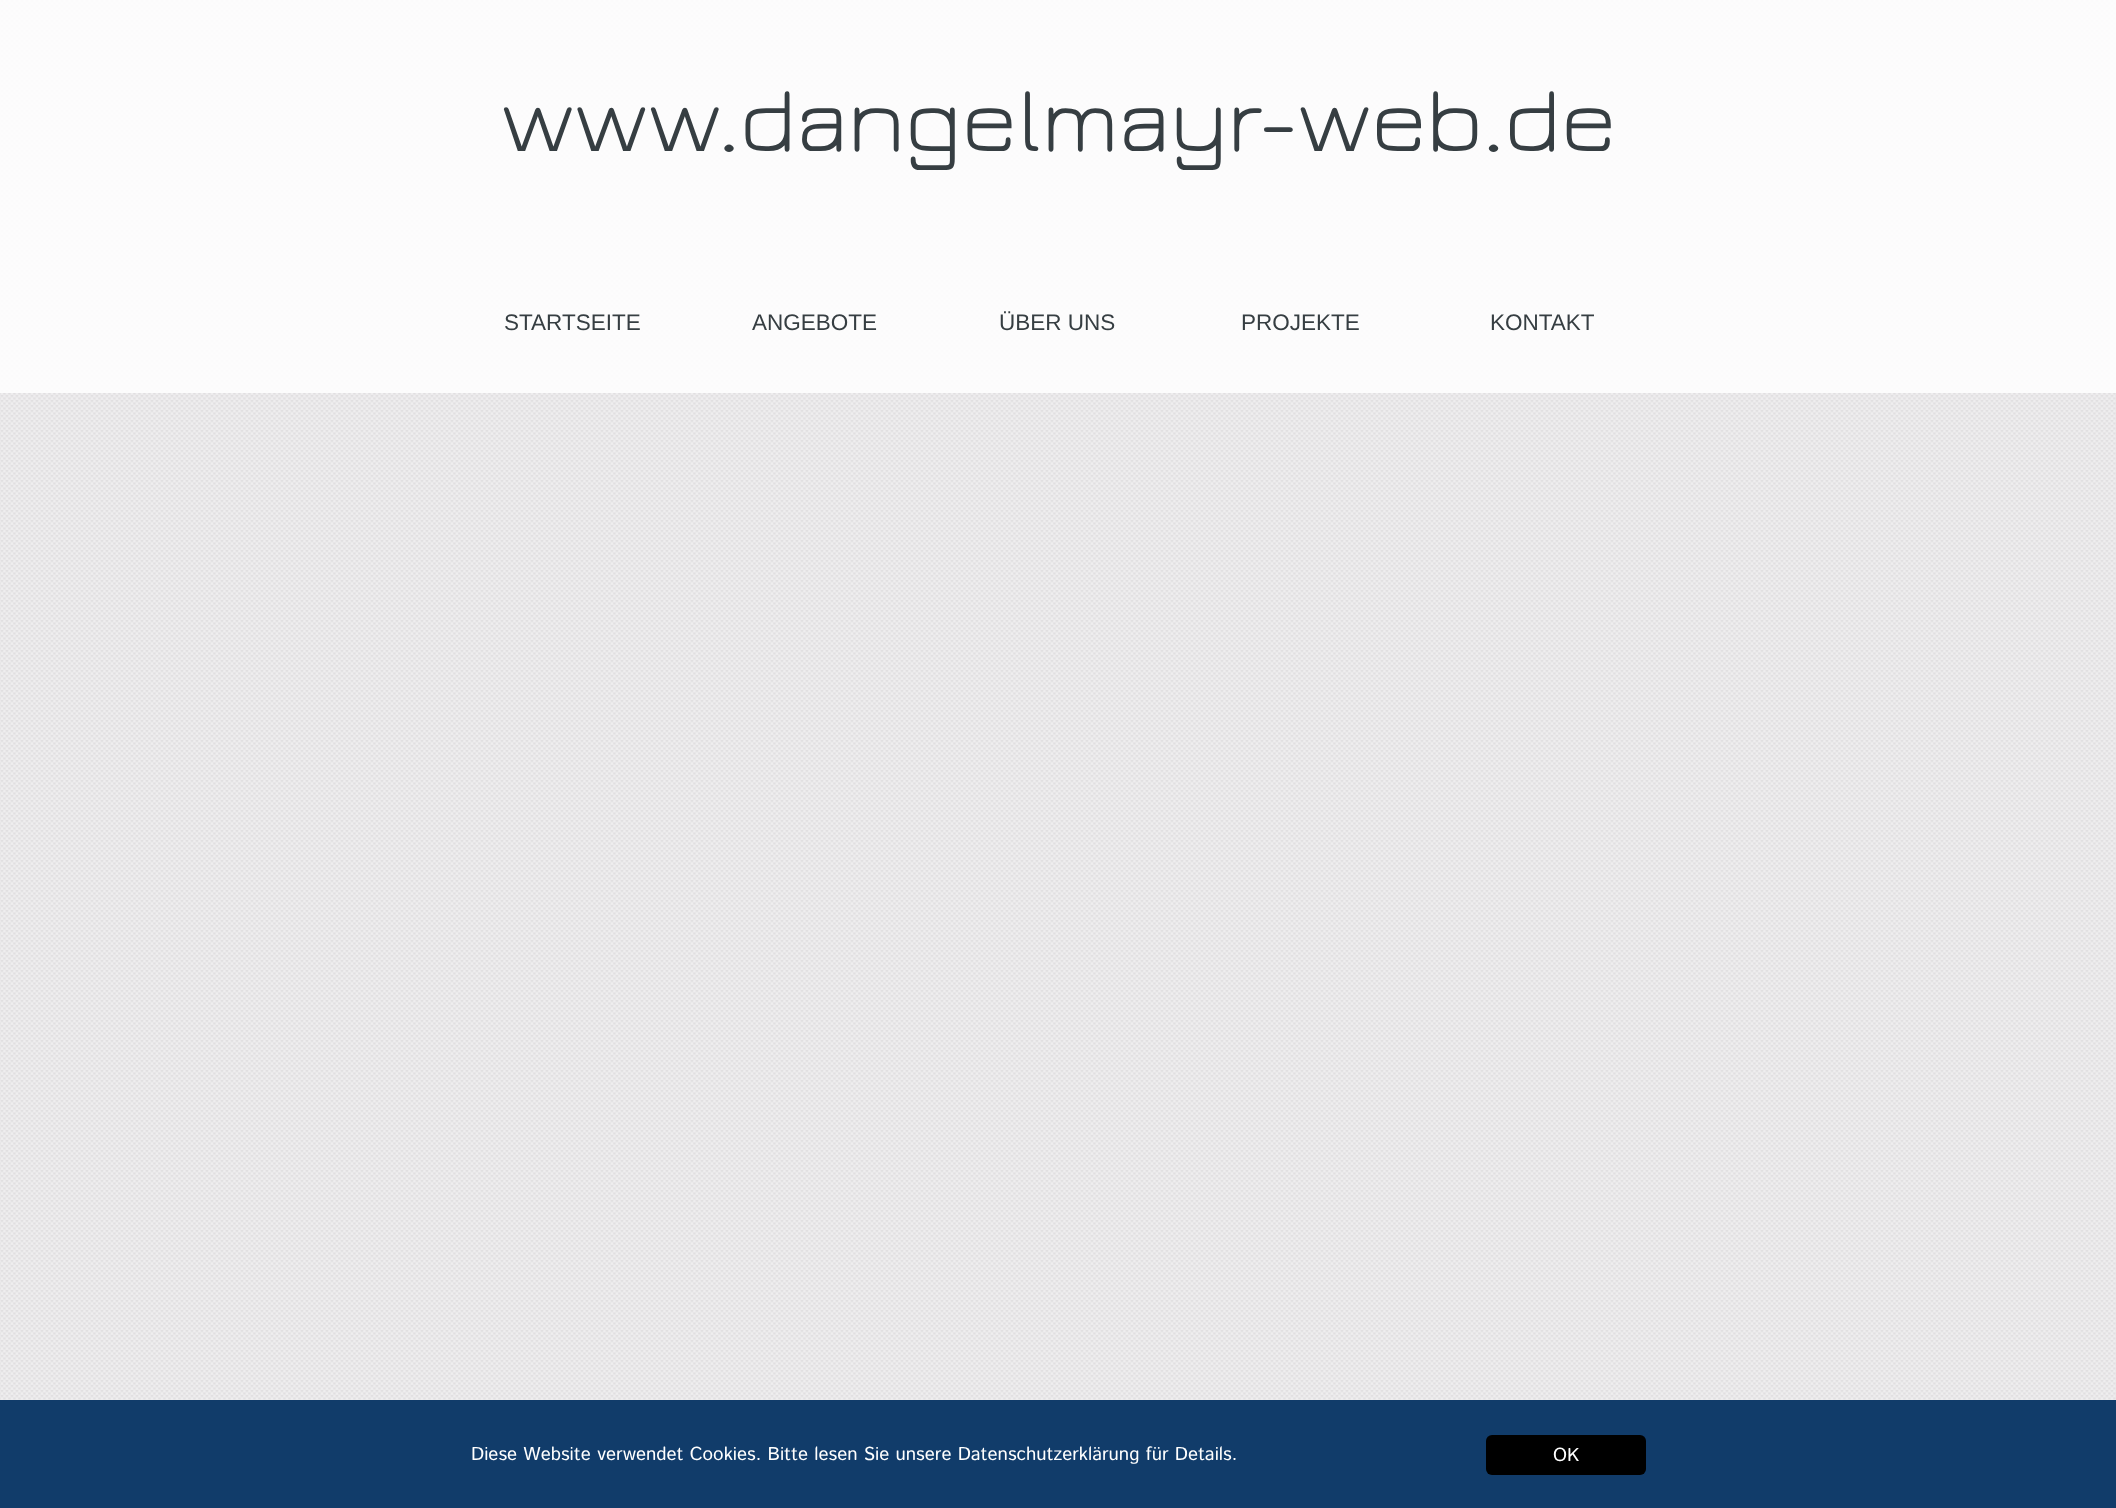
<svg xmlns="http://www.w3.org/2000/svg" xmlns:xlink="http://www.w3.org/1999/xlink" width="2116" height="1508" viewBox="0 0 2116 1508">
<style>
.cls-1{font:95px Jura;fill:#363e42}
.cls-2{font:22.5px Liberation Sans;fill:#363e42}
.cls-3{font:18.75px Istok Web;fill:#ffffff}
</style>
<rect width="100%" height="100%" fill="#ffffff"/>
<image xlink:href="image0.png" x="0" y="0" width="2116" height="1508"/>
<rect fill="#ffffff" fill-opacity="0.85" x="0" y="0" width="2116" height="393"/>
<rect fill="#033162" fill-opacity="0.94" x="0" y="1400" width="2116" height="108"/>
<rect fill="#000000" x="1486" y="1435" width="160" height="40" rx="6"/>
<text class="cls-1" x="501" y="151">www.dangelmayr-web.de</text>
<text class="cls-2" x="504" y="330">STARTSEITE</text>
<text class="cls-2" x="752" y="330">ANGEBOTE</text>
<text class="cls-2" x="999" y="330">ÜBER UNS</text>
<text class="cls-2" x="1241" y="330">PROJEKTE</text>
<text class="cls-2" x="1490" y="330">KONTAKT</text>
<text class="cls-3" x="471" y="1460">Diese Website verwendet Cookies. Bitte lesen Sie unsere Datenschutzerklärung für Details.</text>
<text class="cls-3" x="1553" y="1461">OK</text>
</svg>
